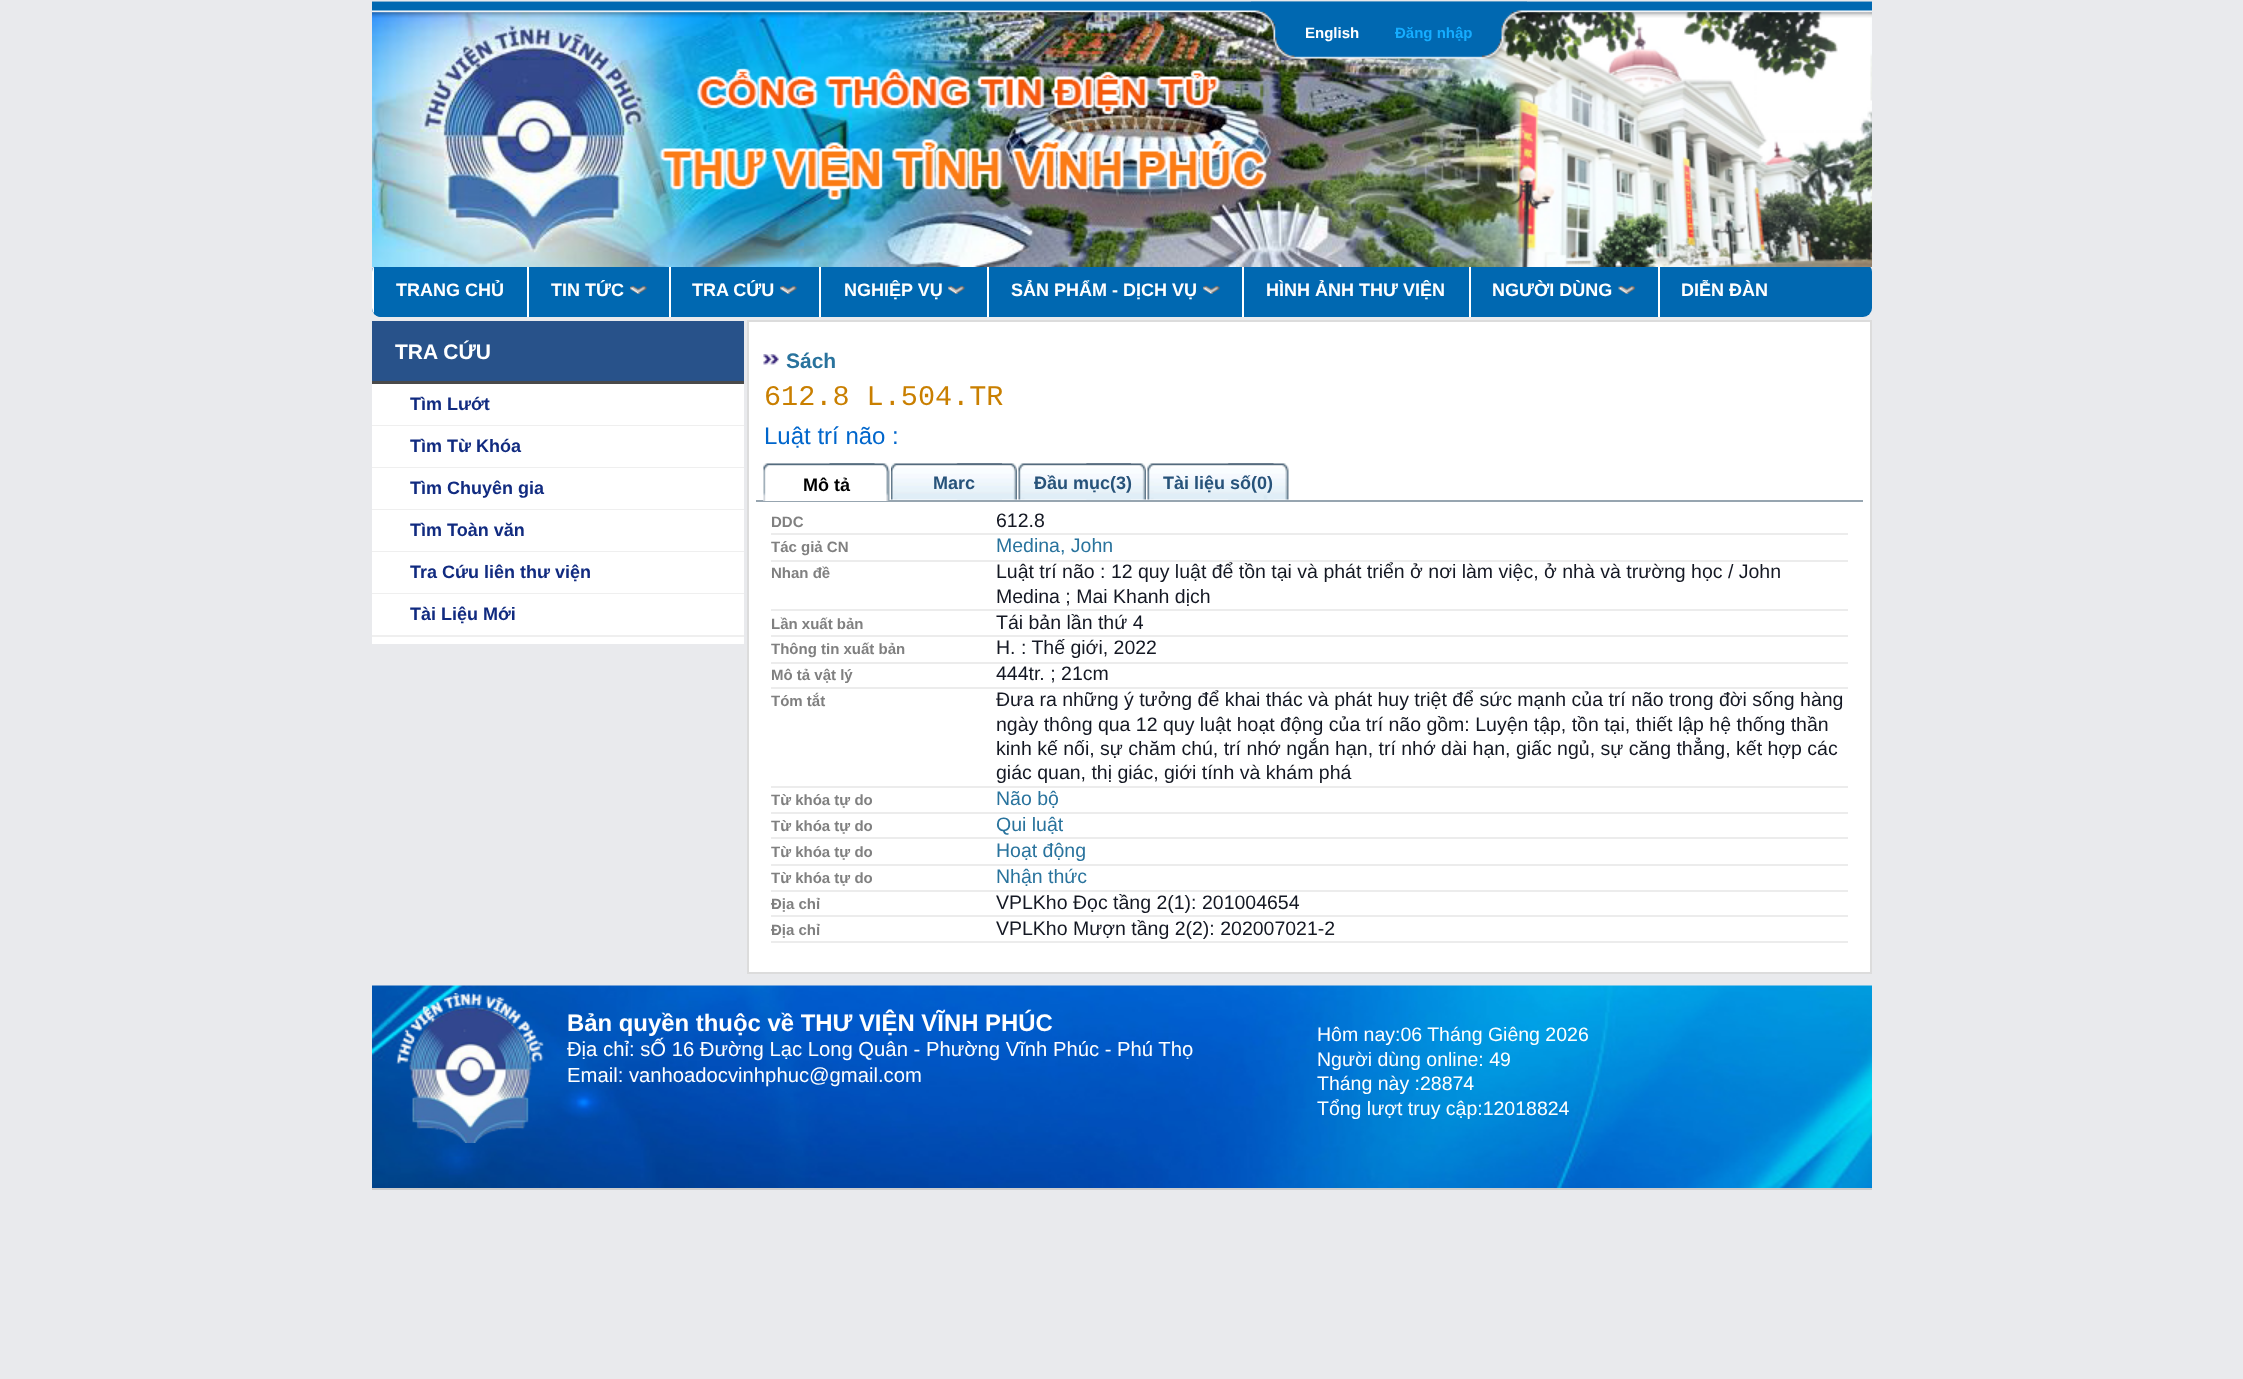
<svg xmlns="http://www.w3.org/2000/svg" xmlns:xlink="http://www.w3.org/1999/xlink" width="2243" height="1379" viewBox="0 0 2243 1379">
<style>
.cls-1{font:bold 15px Liberation Sans;fill:#ffffff}
.cls-2{font:bold 15px Liberation Sans;fill:#15adff}
.cls-3{font:bold 18px Liberation Sans;fill:#ffffff}
.cls-4{font:bold 21px Liberation Sans;fill:#ffffff}
.cls-5{font:bold 18px Liberation Sans;fill:#112b80}
.cls-6{font:bold 21px Liberation Sans;fill:#29739d}
.cls-7{font:28.5px Liberation Mono;fill:#c97f00}
.cls-8{font:24px Liberation Sans;fill:#0066cc}
.cls-9{font:bold 18px Liberation Sans;fill:#000000}
.cls-10{font:bold 18px Liberation Sans;fill:#27537a}
.cls-11{font:bold 15px Liberation Sans;fill:#808080}
.cls-12{font:19.5px Liberation Sans;fill:#141823}
.cls-13{font:19.5px Liberation Sans;fill:#29739d}
.cls-14{font:bold 23.9px Liberation Sans;fill:#ffffff}
.cls-15{font:20.25px Liberation Sans;fill:#ffffff}
.cls-16{font:19.5px Liberation Sans;fill:#ffffff}
</style>
<defs>
<clipPath id="clip1"><rect x="372" y="263" width="1500" height="54" rx="9"/></clipPath>
</defs>
<rect width="100%" height="100%" fill="#e9eaed"/>
<image xlink:href="image0.png" x="372" y="1" width="1500" height="11"/>
<image xlink:href="image8.png" x="372" y="269" width="9" height="48"/>
<rect fill="#0068b1" x="372" y="263" width="1500" height="54" rx="9"/>
<path fill="#0068b1" d="M381 263H527V317H381C376 317 372 313 372 308V272C372 267 376 263 381 263Z"/>
<g clip-path="url(#clip1)">
<rect fill="#ffffff" x="372" y="263" width="2" height="54"/>
</g>
<rect fill="#ffffff" x="527" y="263" width="2" height="54"/>
<rect fill="#ffffff" x="669" y="263" width="2" height="54"/>
<rect fill="#ffffff" x="819" y="263" width="2" height="54"/>
<rect fill="#ffffff" x="987" y="263" width="2" height="54"/>
<rect fill="#ffffff" x="1242" y="263" width="2" height="54"/>
<rect fill="#ffffff" x="1469" y="263" width="2" height="54"/>
<rect fill="#ffffff" x="1658" y="263" width="2" height="54"/>
<image xlink:href="image1.png" x="372" y="12" width="1500" height="255"/>
<image xlink:href="image2.png" x="372" y="1" width="1500" height="17"/>
<image xlink:href="image3.png" x="1251" y="1" width="45" height="58"/>
<image xlink:href="image4.png" x="1296" y="1" width="72" height="58"/>
<image xlink:href="image5.png" x="1368" y="1" width="18" height="58"/>
<image xlink:href="image6.png" x="1386" y="1" width="96" height="58"/>
<image xlink:href="image7.png" x="1482" y="1" width="45" height="58"/>
<image xlink:href="image9.png" x="630" y="285" width="17" height="9"/>
<image xlink:href="image10.png" x="780" y="285" width="17" height="9"/>
<image xlink:href="image10.png" x="948" y="285" width="17" height="9"/>
<image xlink:href="image9.png" x="1203" y="285" width="17" height="9"/>
<image xlink:href="image11.png" x="1618" y="285" width="17" height="9"/>
<rect fill="#28528a" x="372" y="321" width="372" height="60"/>
<rect fill="#4a4a4a" x="372" y="381" width="372" height="3"/>
<rect fill="#ffffff" x="372" y="384" width="372" height="41"/>
<rect fill="#efefef" x="372" y="425" width="372" height="1"/>
<rect fill="#ffffff" x="372" y="426" width="372" height="41"/>
<rect fill="#efefef" x="372" y="467" width="372" height="1"/>
<rect fill="#ffffff" x="372" y="468" width="372" height="41"/>
<rect fill="#efefef" x="372" y="509" width="372" height="1"/>
<rect fill="#ffffff" x="372" y="510" width="372" height="41"/>
<rect fill="#efefef" x="372" y="551" width="372" height="1"/>
<rect fill="#ffffff" x="372" y="552" width="372" height="41"/>
<rect fill="#efefef" x="372" y="593" width="372" height="1"/>
<rect fill="#ffffff" x="372" y="594" width="372" height="41"/>
<rect fill="#efefef" x="372" y="635" width="372" height="2"/>
<rect fill="#ffffff" x="372" y="637" width="372" height="7"/>
<rect fill="#ffffff" stroke="#dcdcdc" stroke-width="2" x="748" y="321" width="1123" height="652"/>
<image xlink:href="image12.png" x="763" y="354" width="16" height="11"/>
<rect fill="#97a5b0" x="756" y="500" width="1107" height="2"/>
<image xlink:href="image13.png" x="763" y="463" width="127" height="38"/>
<image xlink:href="image14.png" x="763" y="463" width="112" height="38"/>
<image xlink:href="image15.png" x="956" y="463" width="61" height="37"/>
<image xlink:href="image16.png" x="891" y="463" width="111" height="37"/>
<image xlink:href="image17.png" x="1086" y="463" width="60" height="37"/>
<image xlink:href="image18.png" x="1018" y="463" width="113" height="37"/>
<image xlink:href="image19.png" x="1227" y="463" width="62" height="37"/>
<image xlink:href="image20.png" x="1147" y="463" width="127" height="37"/>
<rect fill="#ececec" x="771" y="533" width="1077" height="2"/>
<rect fill="#ececec" x="771" y="560" width="1077" height="2"/>
<rect fill="#ececec" x="771" y="609" width="1077" height="2"/>
<rect fill="#ececec" x="771" y="635" width="1077" height="2"/>
<rect fill="#ececec" x="771" y="662" width="1077" height="2"/>
<rect fill="#ececec" x="771" y="687" width="1077" height="2"/>
<rect fill="#ececec" x="771" y="786" width="1077" height="2"/>
<rect fill="#ececec" x="771" y="812" width="1077" height="2"/>
<rect fill="#ececec" x="771" y="837" width="1077" height="2"/>
<rect fill="#ececec" x="771" y="864" width="1077" height="2"/>
<rect fill="#ececec" x="771" y="890" width="1077" height="2"/>
<rect fill="#ececec" x="771" y="915" width="1077" height="2"/>
<rect fill="#ececec" x="771" y="941" width="1077" height="2"/>
<image xlink:href="image21.png" x="372" y="985" width="1500" height="203"/>
<rect fill="#cccccc" x="372" y="1188" width="1500" height="2"/>
<image xlink:href="image22.png" x="396" y="993" width="148" height="150"/>
<text class="cls-1" x="1305" y="38">English</text>
<text class="cls-2" x="1395" y="38">Đăng nhập</text>
<text class="cls-3" x="396" y="296">TRANG CHỦ</text>
<text class="cls-3" x="551" y="296">TIN TỨC</text>
<text class="cls-3" x="692" y="296">TRA CỨU</text>
<text class="cls-3" x="844" y="296">NGHIỆP VỤ</text>
<text class="cls-3" x="1011" y="296">SẢN PHẨM - DỊCH VỤ</text>
<text class="cls-3" x="1266" y="296">HÌNH ẢNH THƯ VIỆN</text>
<text class="cls-3" x="1492" y="296">NGƯỜI DÙNG</text>
<text class="cls-3" x="1681" y="296">DIỄN ĐÀN</text>
<text class="cls-4" x="395" y="359">TRA CỨU</text>
<text class="cls-5" x="410" y="410">Tìm Lướt</text>
<text class="cls-5" x="410" y="452">Tìm Từ Khóa</text>
<text class="cls-5" x="410" y="494">Tìm Chuyên gia</text>
<text class="cls-5" x="410" y="536">Tìm Toàn văn</text>
<text class="cls-5" x="410" y="578">Tra Cứu liên thư viện</text>
<text class="cls-5" x="410" y="620">Tài Liệu Mới</text>
<text class="cls-6" x="786" y="368">Sách</text>
<text class="cls-7" x="764" y="405">612.8 L.504.TR</text>
<text class="cls-8" x="764" y="444">Luật trí não :</text>
<text class="cls-9" x="803" y="491">Mô tả</text>
<text class="cls-10" x="933" y="489">Marc</text>
<text class="cls-10" x="1034" y="489">Đầu mục(3)</text>
<text class="cls-10" x="1163" y="489">Tài liệu số(0)</text>
<text class="cls-11" x="771" y="527">DDC</text>
<text class="cls-12" x="996" y="527">612.8</text>
<text class="cls-11" x="771" y="552">Tác giả CN</text>
<text class="cls-13" x="996" y="552">Medina, John</text>
<text class="cls-11" x="771" y="578">Nhan đề</text>
<text class="cls-12"><tspan x="996" y="578">Luật trí não : 12 quy luật để tồn tại và phát triển ở nơi làm việc, ở nhà và trường học / John</tspan><tspan x="996" y="603">Medina ; Mai Khanh dịch</tspan></text>
<text class="cls-11" x="771" y="629">Lần xuất bản</text>
<text class="cls-12" x="996" y="629">Tái bản lần thứ 4</text>
<text class="cls-11" x="771" y="654">Thông tin xuất bản</text>
<text class="cls-12" x="996" y="654">H. : Thế giới, 2022</text>
<text class="cls-11" x="771" y="680">Mô tả vật lý</text>
<text class="cls-12" x="996" y="680">444tr. ; 21cm</text>
<text class="cls-11" x="771" y="706">Tóm tắt</text>
<text class="cls-12"><tspan x="996" y="706">Đưa ra những ý tưởng để khai thác và phát huy triệt để sức mạnh của trí não trong đời sống hàng</tspan><tspan x="996" y="731">ngày thông qua 12 quy luật hoạt động của trí não gồm: Luyện tập, tồn tại, thiết lập hệ thống thần</tspan><tspan x="996" y="755">kinh kế nối, sự chăm chú, trí nhớ ngắn hạn, trí nhớ dài hạn, giấc ngủ, sự căng thẳng, kết hợp các</tspan><tspan x="996" y="779">giác quan, thị giác, giới tính và khám phá</tspan></text>
<text class="cls-11" x="771" y="805">Từ khóa tự do</text>
<text class="cls-13" x="996" y="805">Não bộ</text>
<text class="cls-11" x="771" y="831">Từ khóa tự do</text>
<text class="cls-13" x="996" y="831">Qui luật</text>
<text class="cls-11" x="771" y="857">Từ khóa tự do</text>
<text class="cls-13" x="996" y="857">Hoạt động</text>
<text class="cls-11" x="771" y="883">Từ khóa tự do</text>
<text class="cls-13" x="996" y="883">Nhận thức</text>
<text class="cls-11" x="771" y="909">Địa chỉ</text>
<text class="cls-12" x="996" y="909">VPLKho Đọc tầng 2(1): 201004654</text>
<text class="cls-11" x="771" y="935">Địa chỉ</text>
<text class="cls-12" x="996" y="935">VPLKho Mượn tầng 2(2): 202007021-2</text>
<text class="cls-14" x="567" y="1031">Bản quyền thuộc về THƯ VIỆN VĨNH PHÚC</text>
<text class="cls-15"><tspan x="567" y="1056">Địa chỉ: sỐ 16 Đường Lạc Long Quân - Phường Vĩnh Phúc - Phú Thọ</tspan><tspan x="567" y="1082">Email: vanhoadocvinhphuc@gmail.com</tspan></text>
<text class="cls-16"><tspan x="1317" y="1041">Hôm nay:06 Tháng Giêng 2026</tspan><tspan x="1317" y="1066">Người dùng online: 49</tspan><tspan x="1317" y="1090">Tháng này :28874</tspan><tspan x="1317" y="1115">Tổng lượt truy cập:12018824</tspan></text>
</svg>
